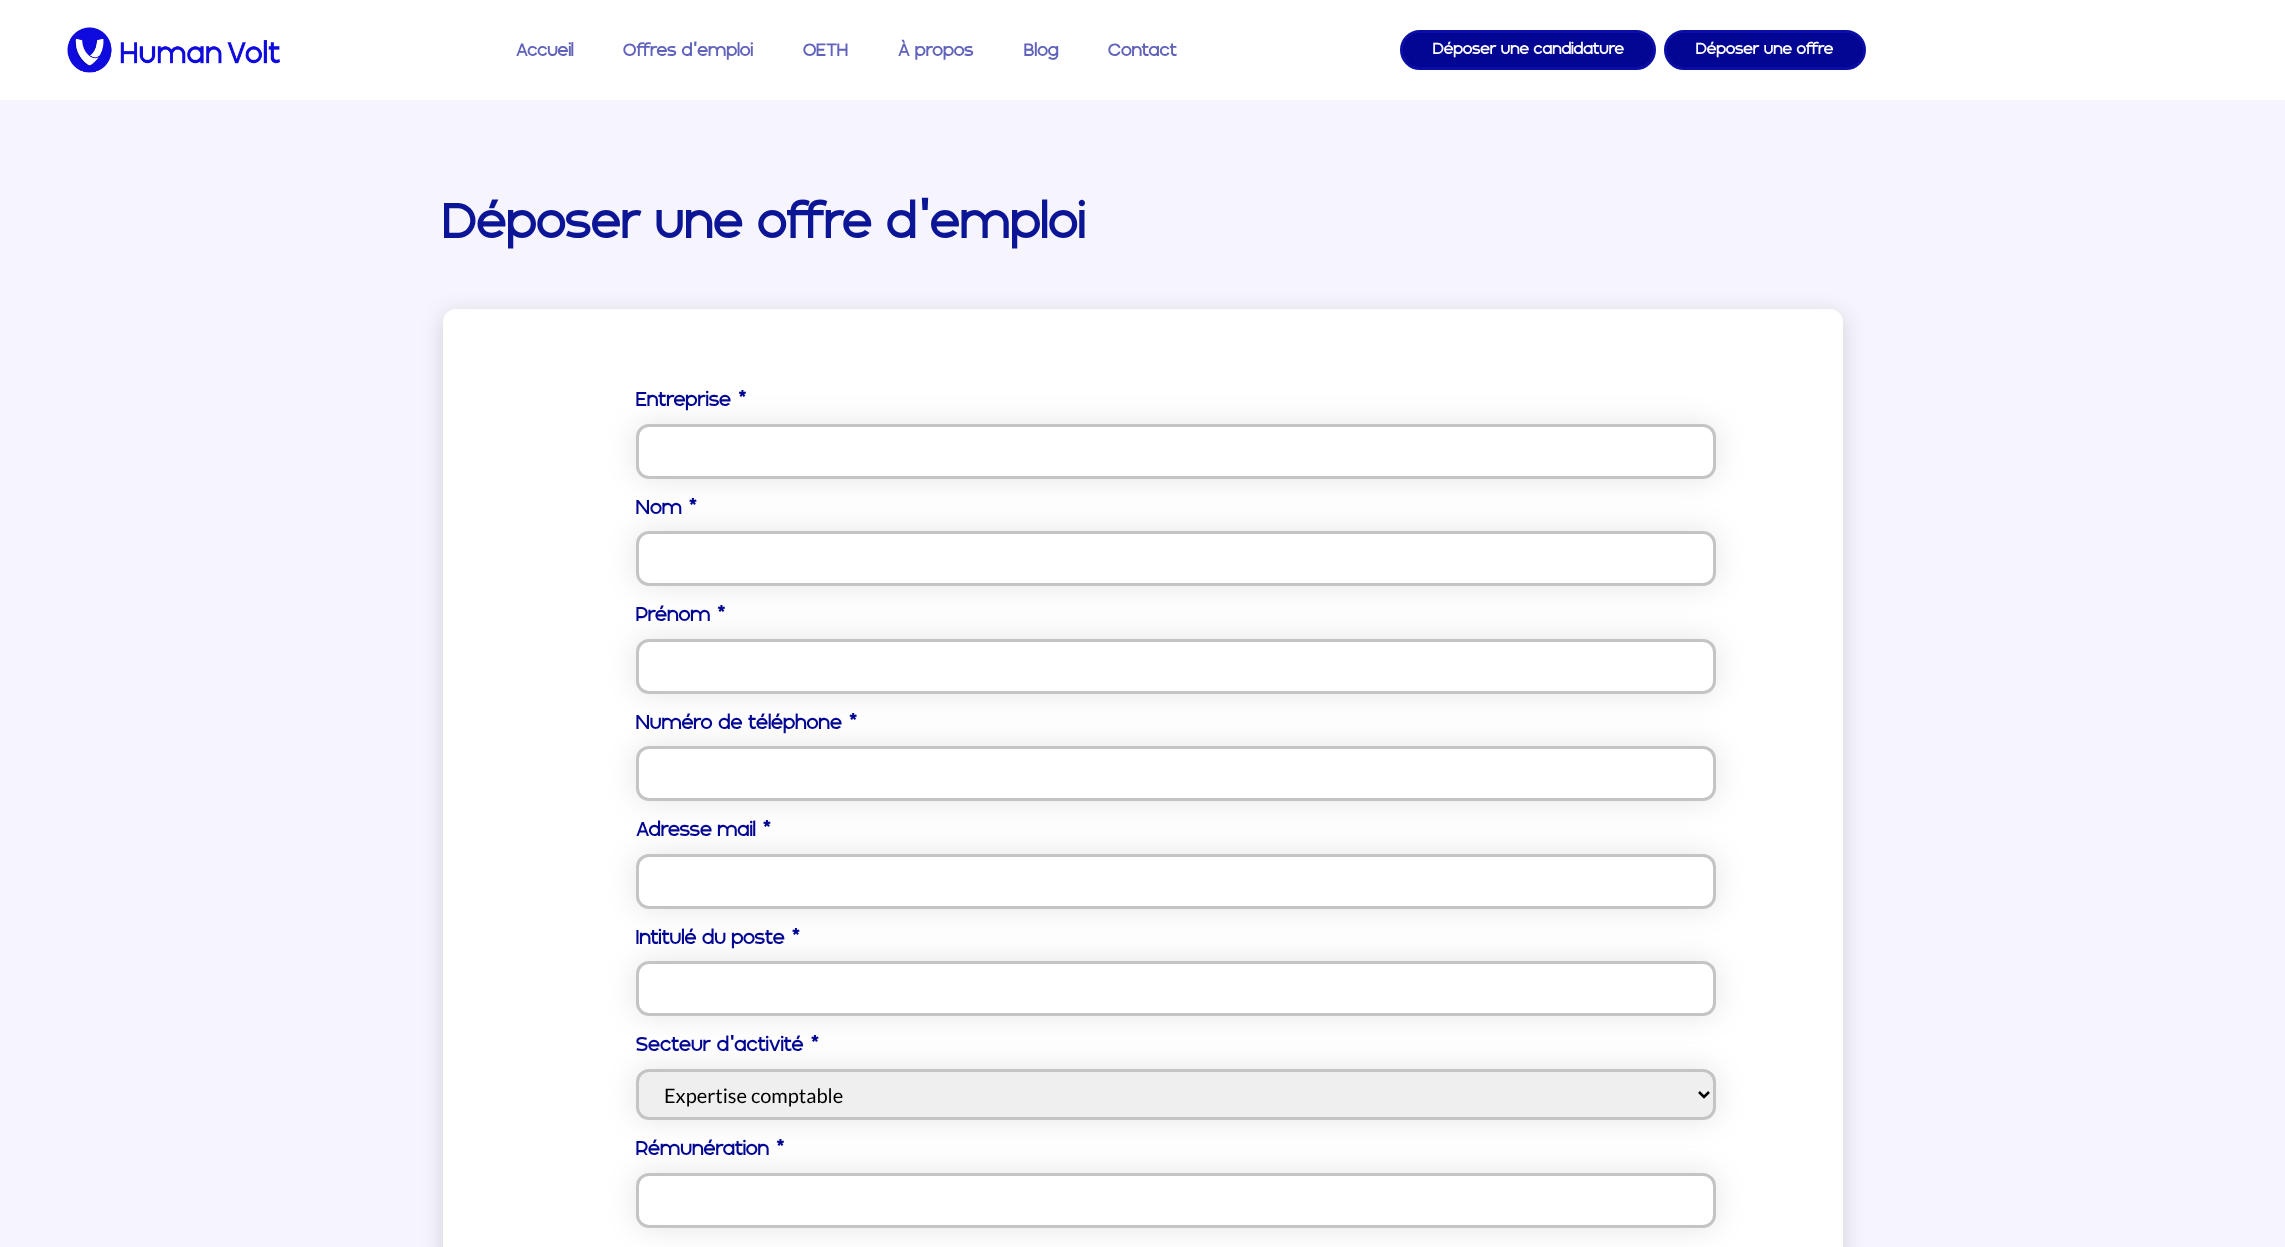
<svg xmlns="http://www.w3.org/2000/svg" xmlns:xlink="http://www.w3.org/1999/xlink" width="2285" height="1247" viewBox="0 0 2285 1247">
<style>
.cls-1{font:18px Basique;fill:#6062bb}
.cls-2{font:16px Basique;fill:#ffffff}
.cls-3{font:50px Basique;fill:#0c1595}
.cls-4{font:20px Basique;fill:#030693}
.cls-5{font:20px Lato;fill:#000000}
</style>
<rect width="100%" height="100%" fill="#f6f5fe"/>
<rect fill="#ffffff" x="0" y="0" width="2285" height="100"/>
<image xlink:href="image0.png" x="67" y="27" width="213" height="46"/>
<rect fill="#030693" stroke="#0a0ea4" stroke-width="3" x="1401.5" y="31.5" width="253" height="37" rx="18.5"/>
<rect fill="#030693" stroke="#0a0ea4" stroke-width="3" x="1665.5" y="31.5" width="199" height="37" rx="18.5"/>
<rect fill="#000000" fill-opacity="0.15" filter="blur(11px)" x="443" y="314" width="1400" height="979" rx="13"/>
<rect fill="#ffffff" x="443" y="309" width="1400" height="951" rx="13"/>
<rect fill="#000000" fill-opacity="0.1" filter="blur(15px)" x="636" y="424" width="1080" height="55" rx="13"/>
<rect fill="#ffffff" stroke="#c4c4c4" stroke-width="3" x="637.5" y="425.5" width="1077" height="52" rx="11.5"/>
<rect fill="#000000" fill-opacity="0.1" filter="blur(15px)" x="636" y="531" width="1080" height="55" rx="13"/>
<rect fill="#ffffff" stroke="#c4c4c4" stroke-width="3" x="637.5" y="532.5" width="1077" height="52" rx="11.5"/>
<rect fill="#000000" fill-opacity="0.1" filter="blur(15px)" x="636" y="639" width="1080" height="55" rx="13"/>
<rect fill="#ffffff" stroke="#c4c4c4" stroke-width="3" x="637.5" y="640.5" width="1077" height="52" rx="11.5"/>
<rect fill="#000000" fill-opacity="0.1" filter="blur(15px)" x="636" y="746" width="1080" height="55" rx="13"/>
<rect fill="#ffffff" stroke="#c4c4c4" stroke-width="3" x="637.5" y="747.5" width="1077" height="52" rx="11.5"/>
<rect fill="#000000" fill-opacity="0.1" filter="blur(15px)" x="636" y="854" width="1080" height="55" rx="13"/>
<rect fill="#ffffff" stroke="#c4c4c4" stroke-width="3" x="637.5" y="855.5" width="1077" height="52" rx="11.5"/>
<rect fill="#000000" fill-opacity="0.1" filter="blur(15px)" x="636" y="961" width="1080" height="55" rx="13"/>
<rect fill="#ffffff" stroke="#c4c4c4" stroke-width="3" x="637.5" y="962.5" width="1077" height="52" rx="11.5"/>
<rect fill="#000000" fill-opacity="0.1" filter="blur(15px)" x="636" y="1069" width="1080" height="51" rx="13"/>
<rect fill="#efefef" stroke="#c4c4c4" stroke-width="3" x="637.5" y="1070.5" width="1077" height="48" rx="11.5"/>
<path fill="none" stroke="#000000" stroke-width="2.5" d="M1699 1092L1704 1097L1709 1092"/>
<rect fill="#000000" fill-opacity="0.1" filter="blur(15px)" x="636" y="1173" width="1080" height="55" rx="13"/>
<rect fill="#ffffff" stroke="#c4c4c4" stroke-width="3" x="637.5" y="1174.5" width="1077" height="52" rx="11.5"/>
<text class="cls-1" x="516" y="56">Accueil</text>
<text class="cls-1" x="623" y="56">Offres d’emploi</text>
<text class="cls-1" x="803" y="56">OETH</text>
<text class="cls-1" x="898" y="56">À propos</text>
<text class="cls-1" x="1024" y="56">Blog</text>
<text class="cls-1" x="1108" y="56">Contact</text>
<text class="cls-2" x="1433" y="54">Déposer une candidature</text>
<text class="cls-2" x="1696" y="54">Déposer une offre</text>
<text class="cls-3" x="443" y="238">Déposer une offre d'emploi</text>
<text class="cls-4" x="636" y="406">Entreprise *</text>
<text class="cls-4" x="636" y="514">Nom *</text>
<text class="cls-4" x="636" y="621">Prénom *</text>
<text class="cls-4" x="636" y="729">Numéro de téléphone *</text>
<text class="cls-4" x="636" y="836">Adresse mail *</text>
<text class="cls-4" x="636" y="944">Intitulé du poste *</text>
<text class="cls-4" x="636" y="1051">Secteur d'activité *</text>
<text class="cls-5" x="664" y="1103">Expertise comptable</text>
<text class="cls-4" x="636" y="1155">Rémunération *</text>
</svg>
